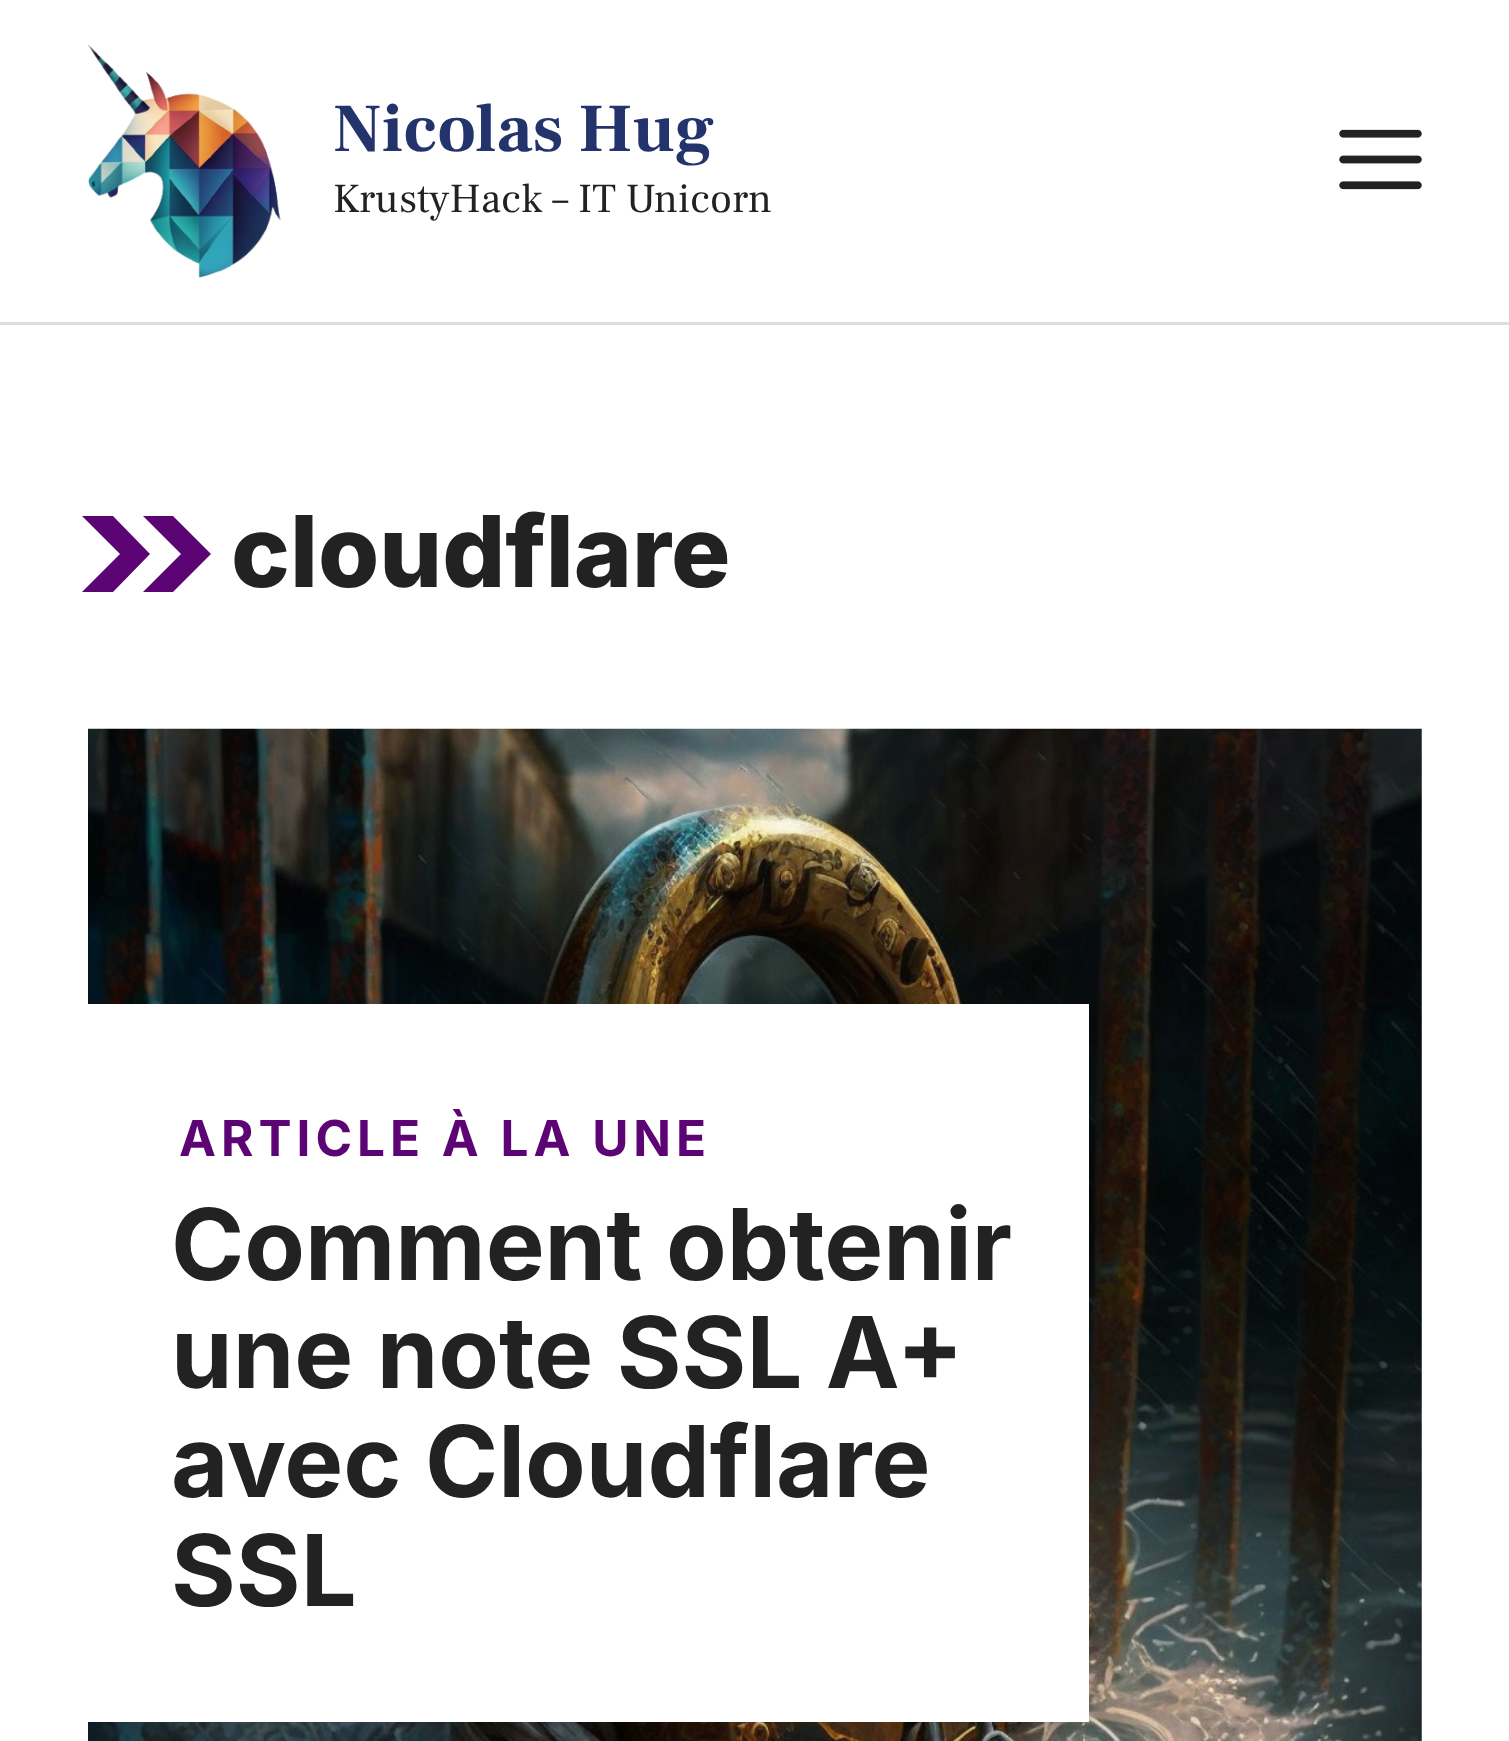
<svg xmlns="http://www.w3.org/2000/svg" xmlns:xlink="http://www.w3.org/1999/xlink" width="1509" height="1741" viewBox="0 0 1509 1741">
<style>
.cls-1{font:bold 68.75px Frank Ruhl Libre;fill:#23346d}
.cls-2{font:41.25px Frank Ruhl Libre;fill:#222222}
.cls-3{font:800 99px Inter;fill:#222222}
.cls-4{font:bold 49.5px Inter;letter-spacing:5px;fill:#5d0475}
.cls-5{font:bold 99px Inter;fill:#222222}
</style>
<rect width="100%" height="100%" fill="#ffffff"/>
<rect fill="#dddddd" x="0" y="322" width="1509" height="3"/>
<image xlink:href="image0.png" x="88" y="45" width="193" height="233"/>
<image xlink:href="image1.png" x="1339" y="129" width="83" height="61"/>
<path fill="#5d0475" d="M181 554L143 592H173L211 554L173 516H143Z"/>
<path fill="#5d0475" d="M120 554L82 592H113L150 554L113 516H82Z"/>
<image xlink:href="image2.png" x="88" y="728" width="1334" height="1013"/>
<rect fill="#ffffff" x="88" y="1004" width="1001" height="718"/>
<text class="cls-1" x="333" y="151">Nicolas Hug</text>
<text class="cls-2" x="333" y="212">KrustyHack – IT Unicorn</text>
<text class="cls-3" x="231" y="587">cloudflare</text>
<text class="cls-4" x="179" y="1156">ARTICLE À LA UNE</text>
<text class="cls-5"><tspan x="171" y="1280">Comment obtenir</tspan><tspan x="171" y="1388">une note SSL A+</tspan><tspan x="171" y="1497">avec Cloudflare</tspan><tspan x="171" y="1606">SSL</tspan></text>
</svg>
